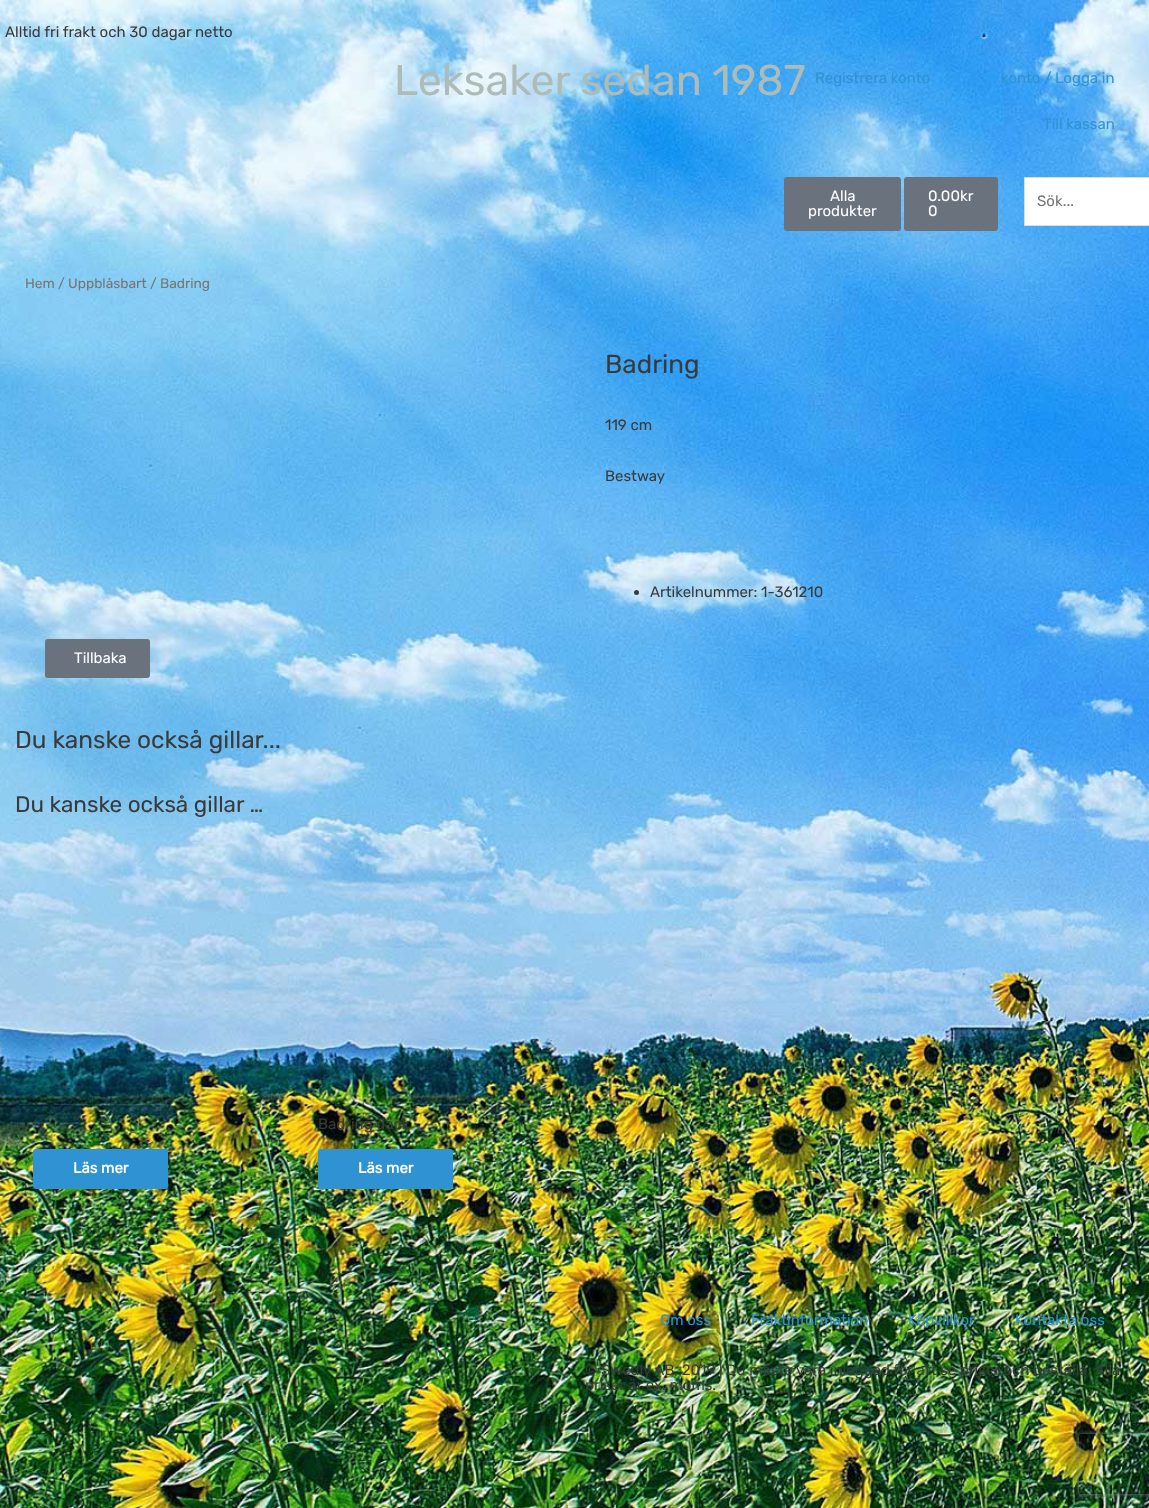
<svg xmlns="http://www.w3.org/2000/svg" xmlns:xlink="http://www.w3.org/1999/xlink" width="1149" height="1508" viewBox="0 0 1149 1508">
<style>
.cls-1{font:300 15px Rubik;fill:#3a3a3a}
.cls-2{font:300 43px Rubik;fill:#aebcb9}
.cls-3{font:300 15px Rubik;fill:#2f92d3}
.cls-4{font:300 15px Rubik;fill:#ffffff}
.cls-5{font:300 15px Rubik;fill:#757575}
.cls-6{font:300 13.75px Rubik;fill:#757575}
.cls-7{font:300 26px Rubik;fill:#3a3a3a}
.cls-8{font:300 24.4px Rubik;fill:#3a3a3a}
.cls-9{font:300 22.5px Rubik;fill:#3a3a3a}
.cls-10{font:bold 15px Rubik;fill:#ffffff}
</style>
<defs>
<clipPath id="clip1"><path d="M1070 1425H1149V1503H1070ZM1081 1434H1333C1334 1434 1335 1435 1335 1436V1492C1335 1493 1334 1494 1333 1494H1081C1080 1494 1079 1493 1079 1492V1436C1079 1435 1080 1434 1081 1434Z" clip-rule="evenodd"/></clipPath>
</defs>
<rect width="100%" height="100%" fill="#ffffff"/>
<image xlink:href="image0.png" x="0" y="0" width="1149" height="1508"/>
<rect fill="#69727d" x="784" y="177" width="117" height="54" rx="3"/>
<rect fill="#69727d" x="904" y="177" width="94" height="54" rx="3"/>
<rect fill="#ffffff" stroke="#dddddd" x="1024.5" y="177.5" width="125" height="48"/>
<circle fill="#3a3a3a" cx="636.5" cy="592.5" r="2.5"/>
<rect fill="#69727d" x="45" y="639" width="105" height="39" rx="3"/>
<rect fill="#2f92d3" x="33" y="1149" width="135" height="40" rx="3"/>
<rect fill="#2f92d3" x="318" y="1149" width="135" height="40" rx="3"/>
<g clip-path="url(#clip1)">
<rect fill="#808080" filter="blur(2.5px)" x="1079" y="1434" width="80" height="60" rx="2"/>
</g>
<text class="cls-1" x="5" y="37">Alltid fri frakt och 30 dagar netto</text>
<text class="cls-2" x="394" y="95">Leksaker sedan 1987</text>
<text class="cls-3" x="815" y="83">Registrera konto</text>
<text class="cls-3" x="1001" y="83">konto / Logga in</text>
<text class="cls-3" x="1043" y="129">Till kassan</text>
<text class="cls-4" x="830" y="201">Alla</text>
<text class="cls-4" x="808" y="216">produkter</text>
<text class="cls-4"><tspan x="928" y="201">0.00kr</tspan><tspan x="928" y="216">0</tspan></text>
<text class="cls-5" x="1037" y="206">Sök...</text>
<text class="cls-6" x="25" y="288">Hem / Uppblåsbart / Badring</text>
<text class="cls-7" x="605" y="373">Badring</text>
<text class="cls-1" x="605" y="430">119 cm</text>
<text class="cls-1" x="605" y="481">Bestway</text>
<text class="cls-1" x="650" y="597">Artikelnummer: 1-361210</text>
<text class="cls-4" x="74" y="663">Tillbaka</text>
<text class="cls-8" x="15" y="748">Du kanske också gillar...</text>
<text class="cls-9" x="15" y="812">Du kanske också gillar …</text>
<text class="cls-10" x="73" y="1173">Läs mer</text>
<text class="cls-1" x="318" y="1129">Badring däck</text>
<text class="cls-10" x="358" y="1173">Läs mer</text>
<text class="cls-3" x="660" y="1325">Om oss</text>
<text class="cls-3" x="751" y="1325">Fraktinformation</text>
<text class="cls-3" x="908" y="1325">Köpvillkor</text>
<text class="cls-3" x="1015" y="1325">Kontakta oss</text>
<text class="cls-1"><tspan x="585" y="1375">© Swedly AB, 2019 | Du måste vara inloggad för att se priser och beställa. Alla</tspan><tspan x="585" y="1390">priser är ex. moms.</tspan></text>
</svg>
